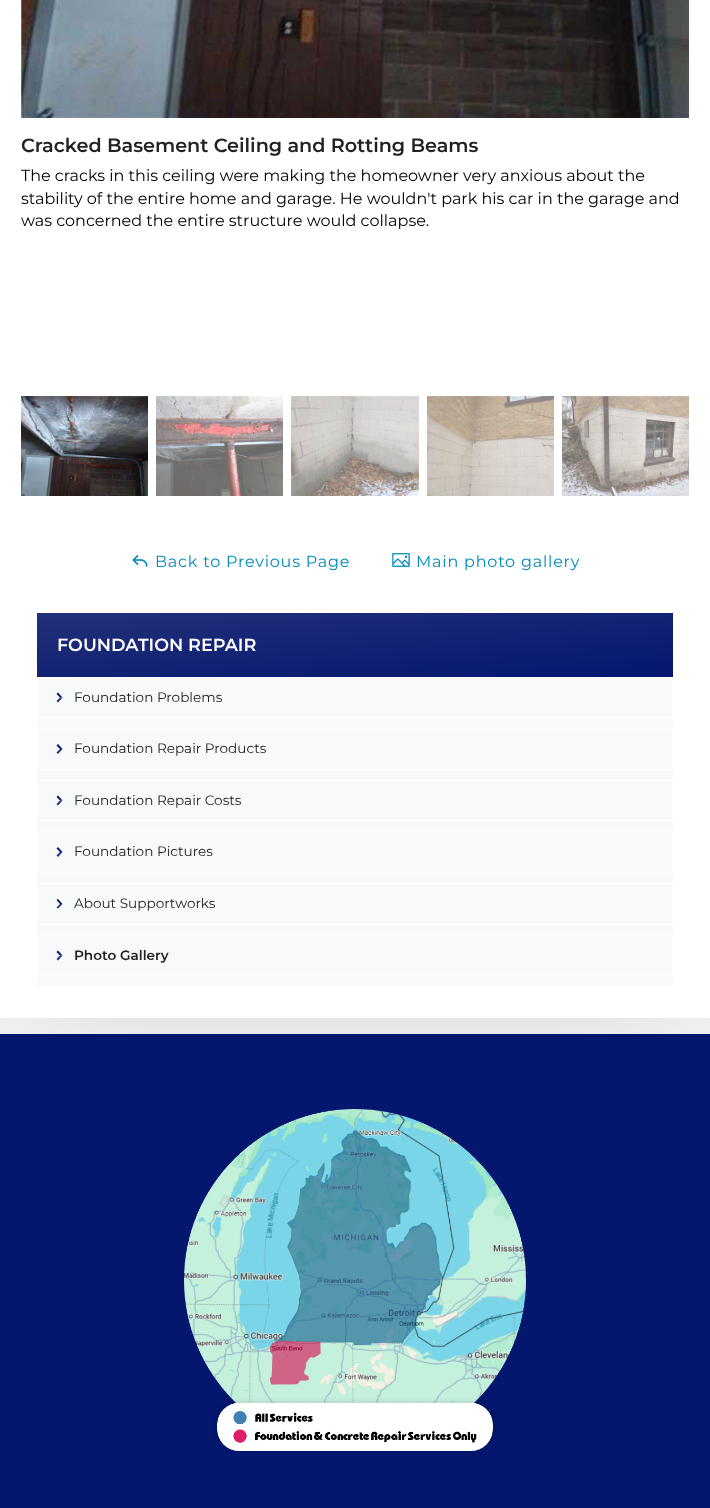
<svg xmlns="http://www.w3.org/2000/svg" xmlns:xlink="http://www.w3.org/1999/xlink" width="710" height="1508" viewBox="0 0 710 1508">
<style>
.cls-1{font:600 19.2px Montserrat;fill:#222222}
.cls-2{font:16px Montserrat;fill:#010101}
.cls-3{font:16px Montserrat;letter-spacing:0.8px;fill:#008cba}
.cls-4{font:600 17.6px Montserrat;fill:#ffffff}
.cls-5{font:13.6px Montserrat;fill:#222222}
.cls-6{font:600 13.6px Montserrat;fill:#222222}
</style>
<defs>
<linearGradient id="g1" gradientUnits="userSpaceOnUse" x1="349" y1="582" x2="361" y2="708"><stop offset="0" stop-color="#22317a"/><stop offset="1" stop-color="#04166e"/></linearGradient>
</defs>
<rect width="100%" height="100%" fill="#f8f9fb"/>
<rect fill="#000000" fill-opacity="0.15" filter="blur(75px)" x="0" y="-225" width="710" height="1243"/>
<rect fill="#ffffff" x="0" y="0" width="710" height="1018"/>
<image xlink:href="image0.png" x="21" y="0" width="668" height="118"/>
<image xlink:href="image1.png" x="21" y="396" width="127" height="100"/>
<image xlink:href="image2.png" x="156" y="396" width="127" height="100"/>
<image xlink:href="image3.png" x="291" y="396" width="128" height="100"/>
<image xlink:href="image4.png" x="427" y="396" width="127" height="100"/>
<image xlink:href="image5.png" x="562" y="396" width="127" height="100"/>
<image xlink:href="image6.png" x="132" y="555" width="16" height="12"/>
<image xlink:href="image7.png" x="392" y="553" width="18" height="14"/>
<rect fill="#f8f9fb" x="37" y="678" width="636" height="308"/>
<rect fill="url(#g1)" x="37" y="613" width="636" height="64"/>
<rect fill="none" stroke="#ffffff" x="37.5" y="677.5" width="635" height="40"/>
<path fill="#04166e" d="M58 692.5L62.5 697.5H60L56.5 694Z"/>
<path fill="#22317a" d="M62.5 697.5L58 702.5L56.5 701L60 697.5Z"/>
<rect fill="none" stroke="#ffffff" x="37.5" y="728.5" width="635" height="41"/>
<path fill="#04166e" d="M58 744L62.5 749H60L56.5 745.5Z"/>
<path fill="#22317a" d="M62.5 749L58 754L56.5 752.5L60 749Z"/>
<rect fill="none" stroke="#ffffff" x="37.5" y="780.5" width="635" height="40"/>
<path fill="#04166e" d="M58 795.5L62.5 800.5H60L56.5 797Z"/>
<path fill="#22317a" d="M62.5 800.5L58 805.5L56.5 804L60 800.5Z"/>
<rect fill="none" stroke="#ffffff" x="37.5" y="831.5" width="635" height="41"/>
<path fill="#04166e" d="M58 847L62.5 852H60L56.5 848.5Z"/>
<path fill="#22317a" d="M62.5 852L58 857L56.5 855.5L60 852Z"/>
<rect fill="none" stroke="#ffffff" x="37.5" y="883.5" width="635" height="41"/>
<path fill="#04166e" d="M58 899L62.5 904H60L56.5 900Z"/>
<path fill="#22317a" d="M62.5 904L58 908.5L56.5 907.5L60 904Z"/>
<rect fill="none" stroke="#ffffff" x="37.5" y="935.5" width="635" height="40"/>
<path fill="#04166e" d="M58 950.5L62.5 955.5H60L56.5 952Z"/>
<path fill="#22317a" d="M62.5 955.5L58 960.5L56.5 959L60 955.5Z"/>
<rect fill="#04166e" x="0" y="1034" width="710" height="474"/>
<image xlink:href="image8.png" x="184" y="1109" width="342" height="344"/>
<text class="cls-1" x="21" y="152">Cracked Basement Ceiling and Rotting Beams</text>
<text class="cls-2"><tspan x="21" y="181">The cracks in this ceiling were making the homeowner very anxious about the</tspan><tspan x="21" y="204">stability of the entire home and garage. He wouldn't park his car in the garage and</tspan><tspan x="21" y="226">was concerned the entire structure would collapse.</tspan></text>
<text class="cls-3" x="155" y="567">Back to Previous Page</text>
<text class="cls-3" x="416" y="567">Main photo gallery</text>
<text class="cls-4" x="57" y="651">FOUNDATION REPAIR</text>
<text class="cls-5" x="74" y="702">Foundation Problems</text>
<text class="cls-5" x="74" y="753">Foundation Repair Products</text>
<text class="cls-5" x="74" y="805">Foundation Repair Costs</text>
<text class="cls-5" x="74" y="856">Foundation Pictures</text>
<text class="cls-5" x="74" y="908">About Supportworks</text>
<text class="cls-6" x="74" y="960">Photo Gallery</text>
</svg>
